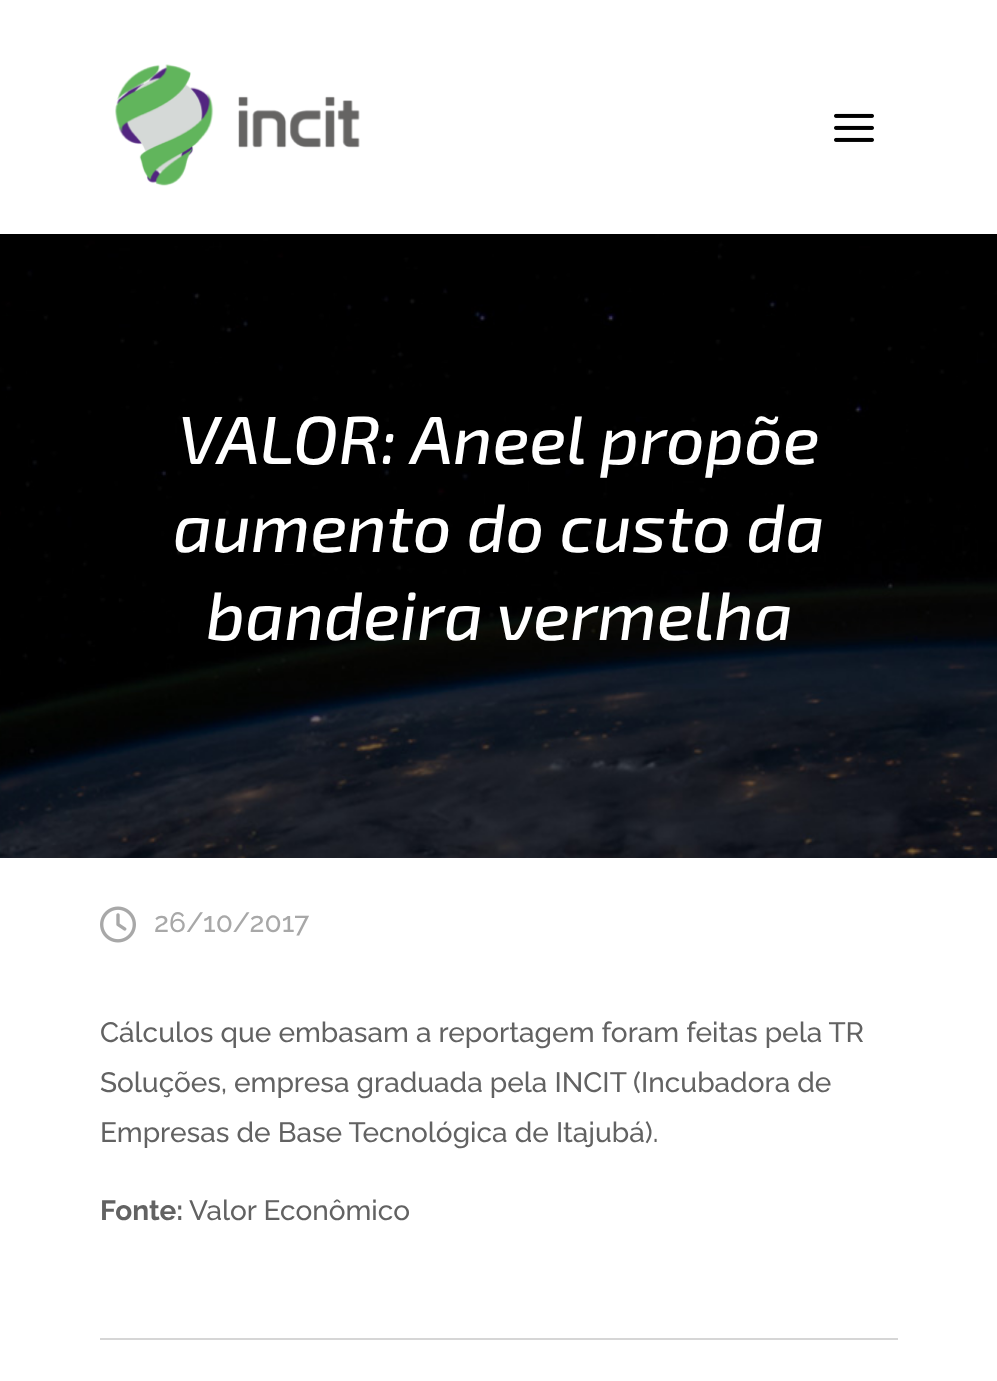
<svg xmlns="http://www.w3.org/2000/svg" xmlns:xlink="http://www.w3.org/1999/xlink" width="997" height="1381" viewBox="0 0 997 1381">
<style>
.cls-1{font:italic 500 68px 'Exo 2';fill:#ffffff}
.cls-2{font:500 28px Raleway;fill:#a8a8a8}
.cls-3{font:500 28px Raleway;fill:#626262}
.cls-4{font:bold 28px Raleway;fill:#626262}
</style>
<rect width="100%" height="100%" fill="#ffffff"/>
<image xlink:href="image0.png" x="115" y="64" width="245" height="122"/>
<image xlink:href="image1.png" x="834" y="113" width="40" height="29"/>
<image xlink:href="image2.png" x="0" y="234" width="997" height="624"/>
<image xlink:href="image3.png" x="100" y="906" width="36" height="37"/>
<rect fill="#d6d6d6" x="100" y="1338" width="798" height="2"/>
<text class="cls-1" x="178" y="464">VALOR: Aneel propõe</text>
<text class="cls-1" x="173" y="552">aumento do custo da</text>
<text class="cls-1" x="206" y="640">bandeira vermelha</text>
<text class="cls-2" x="154" y="932">26/10/2017</text>
<text class="cls-3"><tspan x="100" y="1042">Cálculos que embasam a reportagem foram feitas pela TR</tspan><tspan x="100" y="1092">Soluções, empresa graduada pela INCIT (Incubadora de</tspan><tspan x="100" y="1142">Empresas de Base Tecnológica de Itajubá).</tspan></text>
<text class="cls-4" x="100" y="1220">Fonte:</text>
<text class="cls-3" x="189" y="1220">Valor Econômico</text>
</svg>
